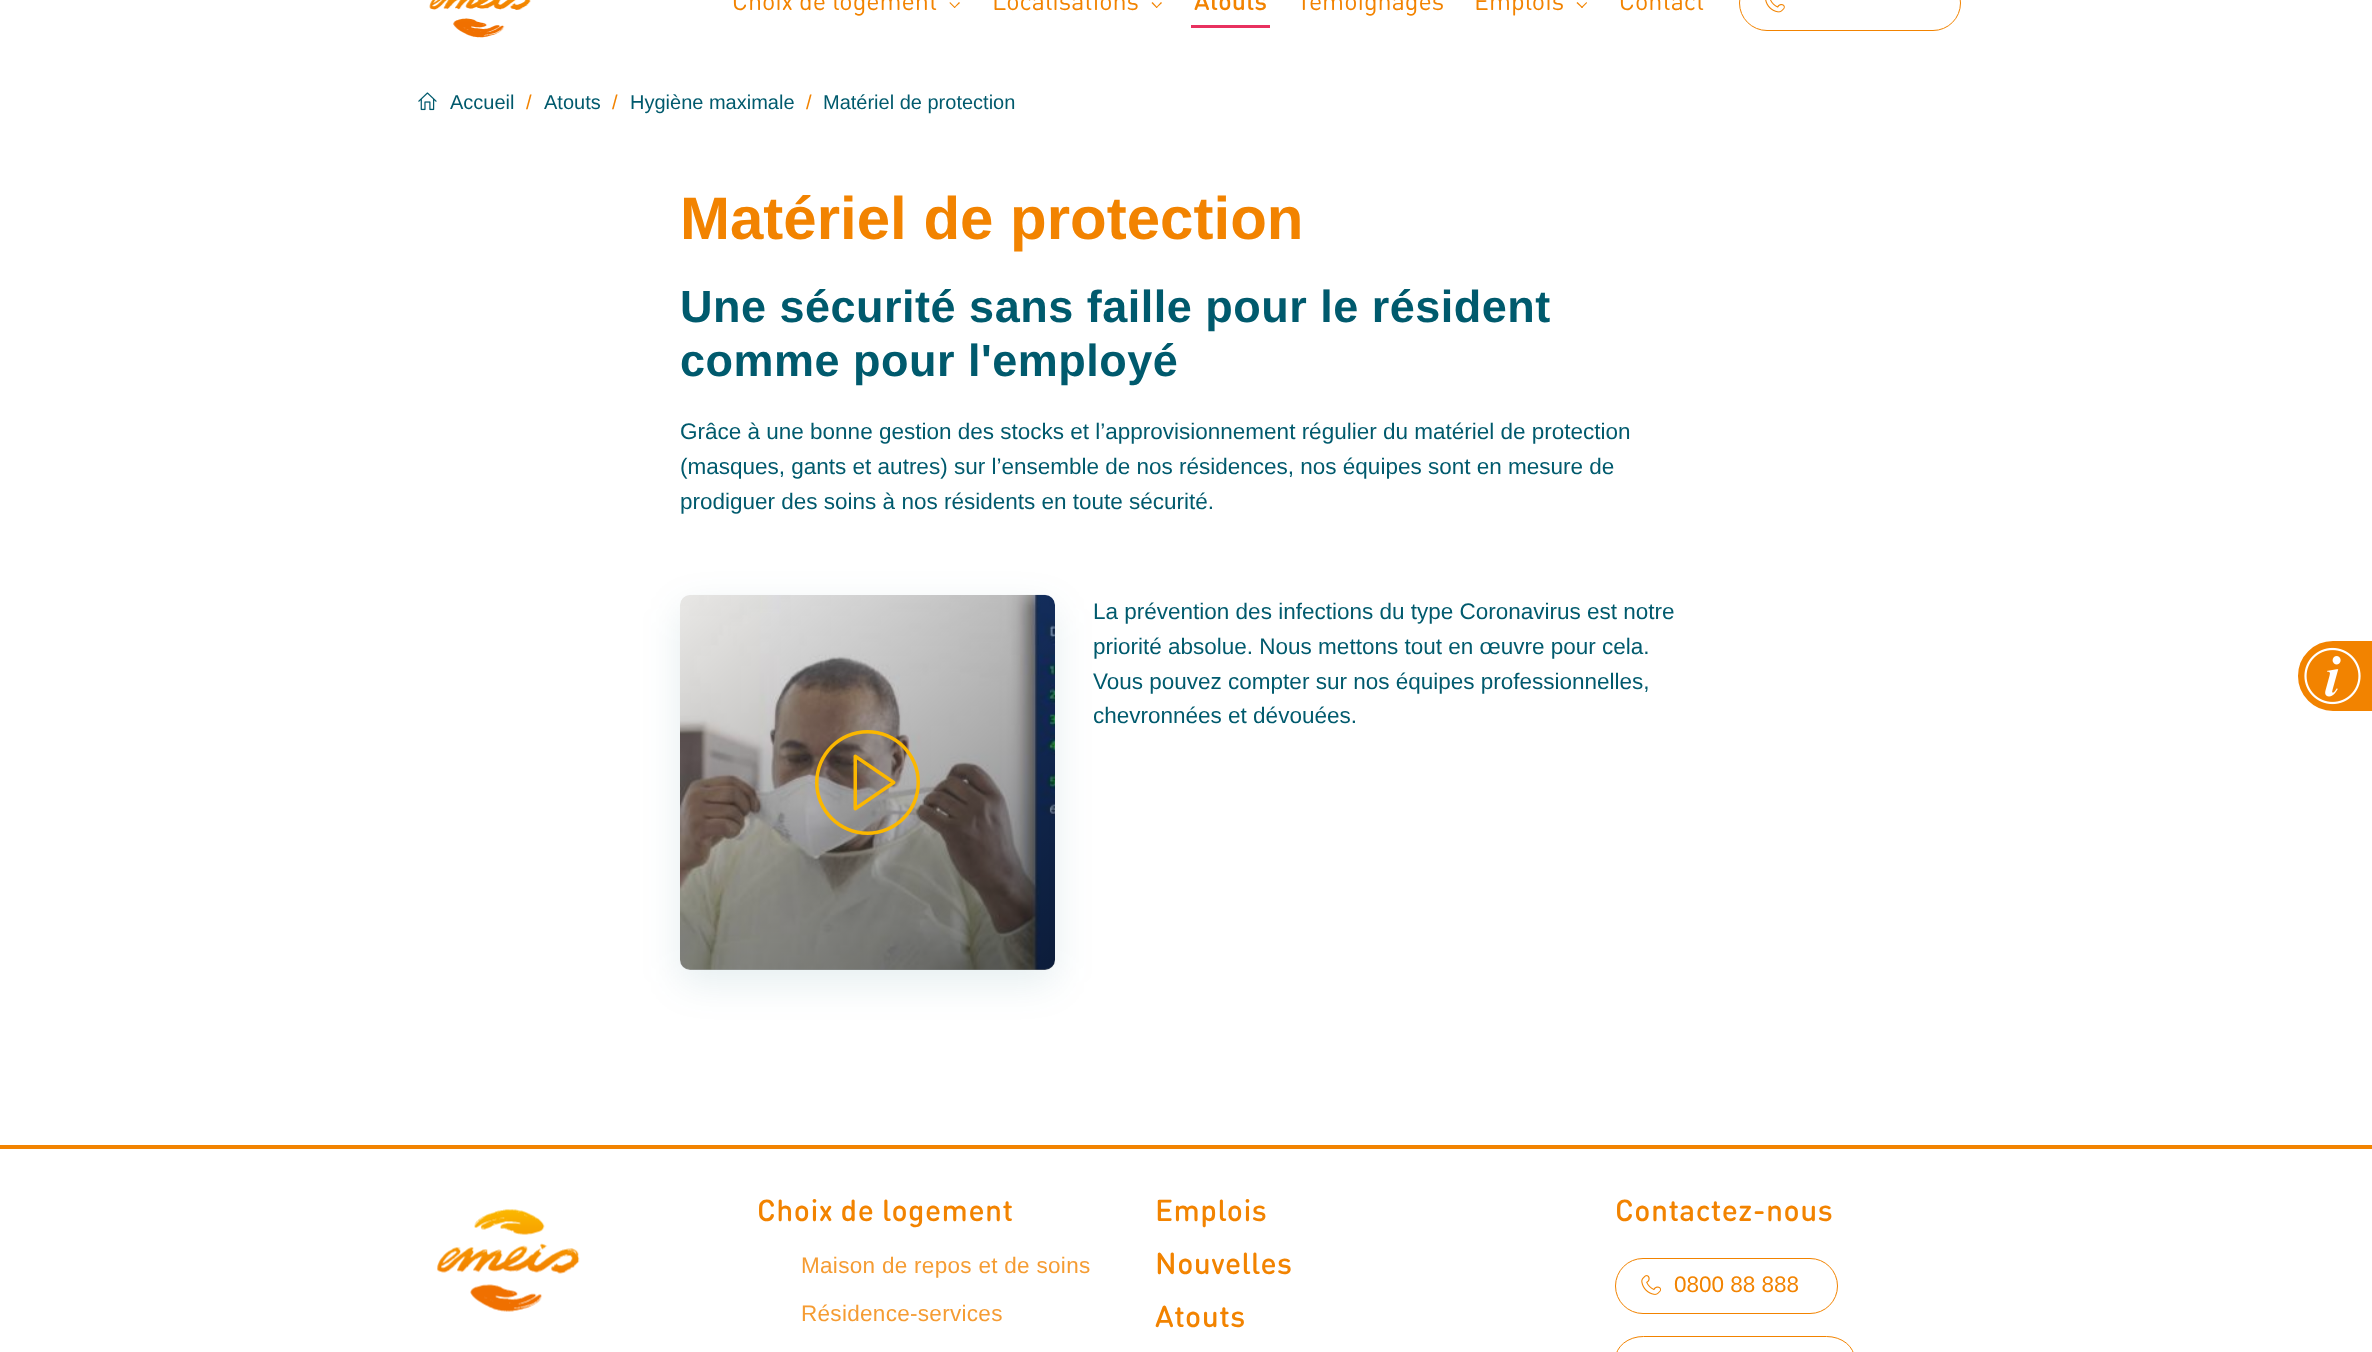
<svg xmlns="http://www.w3.org/2000/svg" xmlns:xlink="http://www.w3.org/1999/xlink" width="2372" height="1352" viewBox="0 0 2372 1352">
<style>
.cls-1{font:25px 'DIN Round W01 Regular';fill:#f28300}
.cls-2{font:500 25px 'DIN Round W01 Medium';fill:#f28300}
.cls-3{font:20px Liberation Sans;fill:#005a6d}
.cls-4{font:20px Liberation Sans;fill:#f28300}
.cls-5{font:bold 60px Liberation Sans;fill:#f28300}
.cls-6{font:bold 45px Liberation Sans;letter-spacing:0.5px;fill:#005a6d}
.cls-7{font:22.5px Liberation Sans;fill:#005a6d}
.cls-8{font:500 30px 'DIN Round W01 Medium';letter-spacing:0.5px;fill:#f28300}
.cls-9{font:22.5px Liberation Sans;letter-spacing:0.3px;fill:#f59c33}
.cls-10{font:22.5px Liberation Sans;fill:#f28300}
</style>
<defs>
<linearGradient id="g1" gradientUnits="userSpaceOnUse" x1="1106" y1="1067" x2="698" y2="580"><stop offset="0" stop-color="#000000" stop-opacity="0.62"/><stop offset="0.99" stop-color="#000000" stop-opacity="0.03"/></linearGradient>
</defs>
<rect width="100%" height="100%" fill="#ffffff"/>
<image xlink:href="image0.png" x="429" y="0" width="102" height="38"/>
<path fill="#f28300" d="M959 2L960 3L954.5 8L954 7.5Z"/>
<path fill="#f28300" d="M950 2L955.5 7.5L954.5 8L949.5 3Z"/>
<path fill="#f28300" d="M1161 2L1162 3L1156.5 8L1156 7.5Z"/>
<path fill="#f28300" d="M1152.5 2L1157.5 7.5L1156.5 8L1151.5 3Z"/>
<rect fill="#e8315f" x="1191" y="25" width="79" height="3"/>
<path fill="#f28300" d="M1586.5 2L1587 3L1582 8L1581 7.5Z"/>
<path fill="#f28300" d="M1577.5 2L1583 7.5L1582 8L1576.5 3Z"/>
<rect fill="none" stroke="#f28300" x="1739.5" y="-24.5" width="221" height="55" rx="27.5"/>
<image xlink:href="image1.png" x="1765" y="0" width="20" height="13"/>
<image xlink:href="image2.png" x="418" y="92" width="19" height="19"/>
<rect fill="#005a6d" fill-opacity="0.1" filter="blur(19px)" x="680" y="608" width="375" height="375" rx="10"/>
<image xlink:href="image3.png" x="680" y="594" width="375" height="376"/>
<rect fill="url(#g1)" x="680" y="595" width="375" height="375" rx="10"/>
<image xlink:href="image4.png" x="815" y="730" width="105" height="105"/>
<rect fill="#f28300" x="0" y="1145" width="2372" height="4"/>
<image xlink:href="image5.png" x="437" y="1209" width="143" height="103"/>
<rect fill="none" stroke="#f28300" x="1615.5" y="1258.5" width="222" height="55" rx="27.5"/>
<image xlink:href="image6.png" x="1641" y="1275" width="20" height="20"/>
<rect fill="none" stroke="#f28300" x="1615.5" y="1336.5" width="239" height="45" rx="28"/>
<path fill="#f28300" stroke="#f28300" stroke-width="5" d="M2333 643.5H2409.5V708.5H2333C2315 708.5 2300.5 694 2300.5 676C2300.5 658 2315 643.5 2333 643.5Z"/>
<image xlink:href="image7.png" x="2304" y="647" width="57" height="58"/>
<text class="cls-1" x="732" y="10">Choix de logement</text>
<text class="cls-1" x="992" y="10">Localisations</text>
<text class="cls-2" x="1194" y="10">Atouts</text>
<text class="cls-1" x="1297" y="10">Témoignages</text>
<text class="cls-1" x="1474" y="10">Emplois</text>
<text class="cls-1" x="1619" y="10">Contact</text>
<text class="cls-3" x="450" y="109">Accueil</text>
<text class="cls-4" x="526" y="109">/</text>
<text class="cls-3" x="544" y="109">Atouts</text>
<text class="cls-4" x="612" y="109">/</text>
<text class="cls-3" x="630" y="109">Hygiène maximale</text>
<text class="cls-4" x="806" y="109">/</text>
<text class="cls-3" x="823" y="109">Matériel de protection</text>
<text class="cls-5" x="680" y="239">Matériel de protection</text>
<text class="cls-6"><tspan x="680" y="322">Une sécurité sans faille pour le résident</tspan><tspan x="680" y="376">comme pour l'employé</tspan></text>
<text class="cls-7"><tspan x="680" y="439">Grâce à une bonne gestion des stocks et l’approvisionnement régulier du matériel de protection</tspan><tspan x="680" y="474">(masques, gants et autres) sur l’ensemble de nos résidences, nos équipes sont en mesure de</tspan><tspan x="680" y="509">prodiguer des soins à nos résidents en toute sécurité.</tspan></text>
<text class="cls-7"><tspan x="1093" y="619">La prévention des infections du type Coronavirus est notre</tspan><tspan x="1093" y="654">priorité absolue. Nous mettons tout en œuvre pour cela.</tspan><tspan x="1093" y="689">Vous pouvez compter sur nos équipes professionnelles,</tspan><tspan x="1093" y="723">chevronnées et dévouées.</tspan></text>
<text class="cls-8" x="757" y="1221">Choix de logement</text>
<text class="cls-9" x="801" y="1273">Maison de repos et de soins</text>
<text class="cls-9" x="801" y="1321">Résidence-services</text>
<text class="cls-8"><tspan x="1155" y="1221">Emplois</tspan><tspan x="1155" y="1274">Nouvelles</tspan><tspan x="1155" y="1327">Atouts</tspan></text>
<text class="cls-8" x="1615" y="1221">Contactez-nous</text>
<text class="cls-10" x="1674" y="1292">0800 88 888</text>
</svg>
